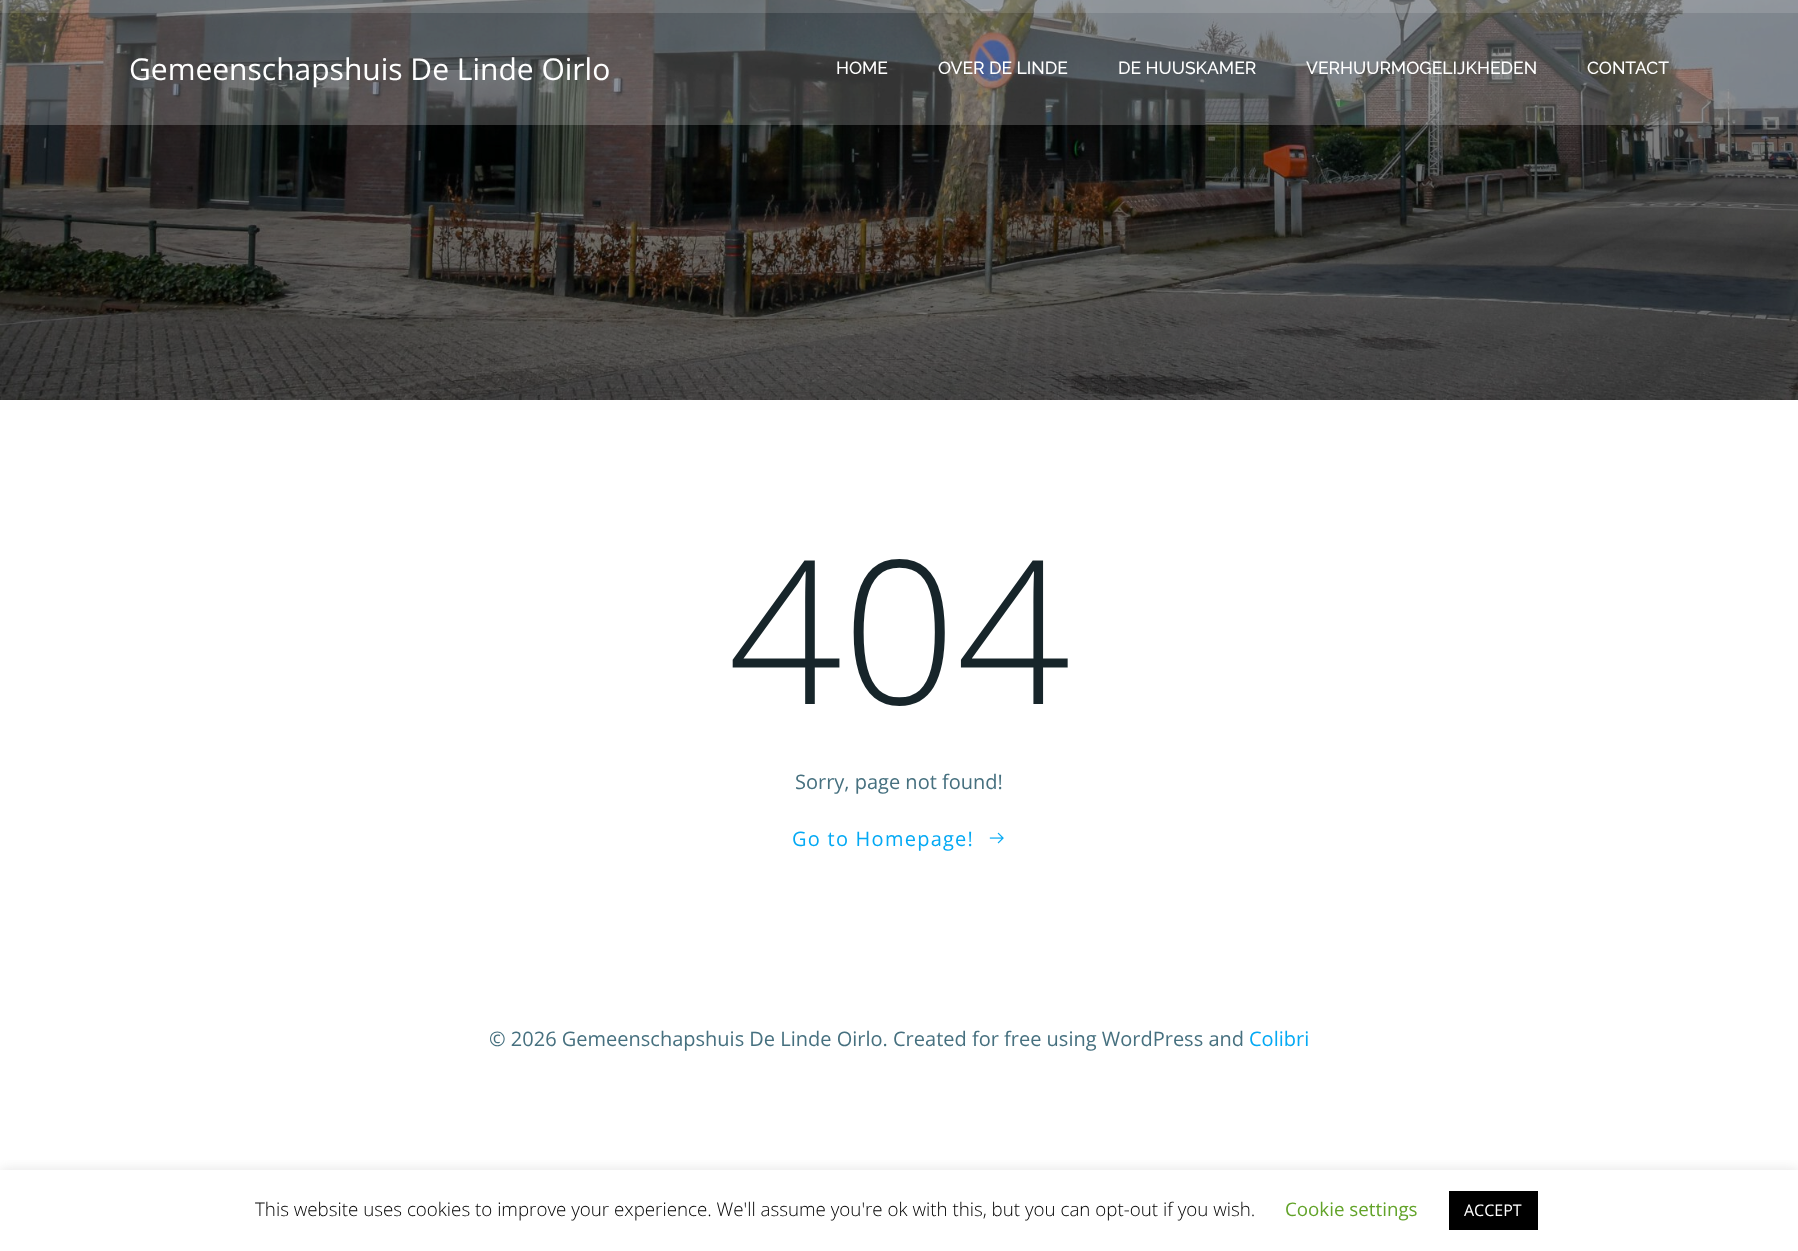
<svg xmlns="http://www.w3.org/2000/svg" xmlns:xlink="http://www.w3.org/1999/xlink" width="1798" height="1251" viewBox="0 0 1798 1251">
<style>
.cls-1{font:30px Open Sans;fill:#ffffff}
.cls-2{font:500 17.5px Raleway;fill:#ffffff}
.cls-3{font:300 200px Open Sans;fill:#17252a}
.cls-4{font:20px Open Sans;fill:#46707f}
.cls-5{font:20px Open Sans;letter-spacing:1.25px;fill:#03a9f4}
.cls-6{font:20px Open Sans;fill:#03a9f4}
.cls-7{font:300 18.75px Open Sans;fill:#000000}
.cls-8{font:18.75px Open Sans;fill:#62a329}
.cls-9{font:16px Open Sans;fill:#ffffff}
</style>
<defs>
<clipPath id="clip1"><rect x="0" y="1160" width="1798" height="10"/></clipPath>
</defs>
<rect width="100%" height="100%" fill="#ffffff"/>
<image xlink:href="image0.png" x="0" y="0" width="1798" height="400"/>
<rect fill="#ffffff" fill-opacity="0.3" x="0" y="0" width="1798" height="13"/>
<rect fill="#ffffff" fill-opacity="0.2" x="0" y="13" width="1798" height="112"/>
<image xlink:href="image1.png" x="989" y="832" width="15" height="12"/>
<g clip-path="url(#clip1)">
<rect fill="#acabab" fill-opacity="0.3" filter="blur(6px)" x="0" y="1169" width="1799" height="81"/>
</g>
<rect fill="#000000" x="1449" y="1191" width="89" height="39"/>
<text class="cls-1" x="129" y="80">Gemeenschapshuis De Linde Oirlo</text>
<text class="cls-2" x="836" y="74">HOME</text>
<text class="cls-2" x="938" y="74">OVER DE LINDE</text>
<text class="cls-2" x="1118" y="74">DE HUUSKAMER</text>
<text class="cls-2" x="1306" y="74">VERHUURMOGELIJKHEDEN</text>
<text class="cls-2" x="1587" y="74">CONTACT</text>
<text class="cls-3" x="728" y="704">404</text>
<text class="cls-4" x="795" y="789">Sorry, page not found!</text>
<text class="cls-5" x="792" y="846">Go to Homepage!</text>
<text class="cls-4" x="489" y="1046">© 2026 Gemeenschapshuis De Linde Oirlo. Created for free using WordPress and</text>
<text class="cls-6" x="1249" y="1046">Colibri</text>
<text class="cls-7" x="255" y="1216">This website uses cookies to improve your experience. We'll assume you're ok with this, but you can opt-out if you wish.</text>
<text class="cls-8" x="1285" y="1216">Cookie settings</text>
<text class="cls-9" x="1464" y="1216">ACCEPT</text>
</svg>
